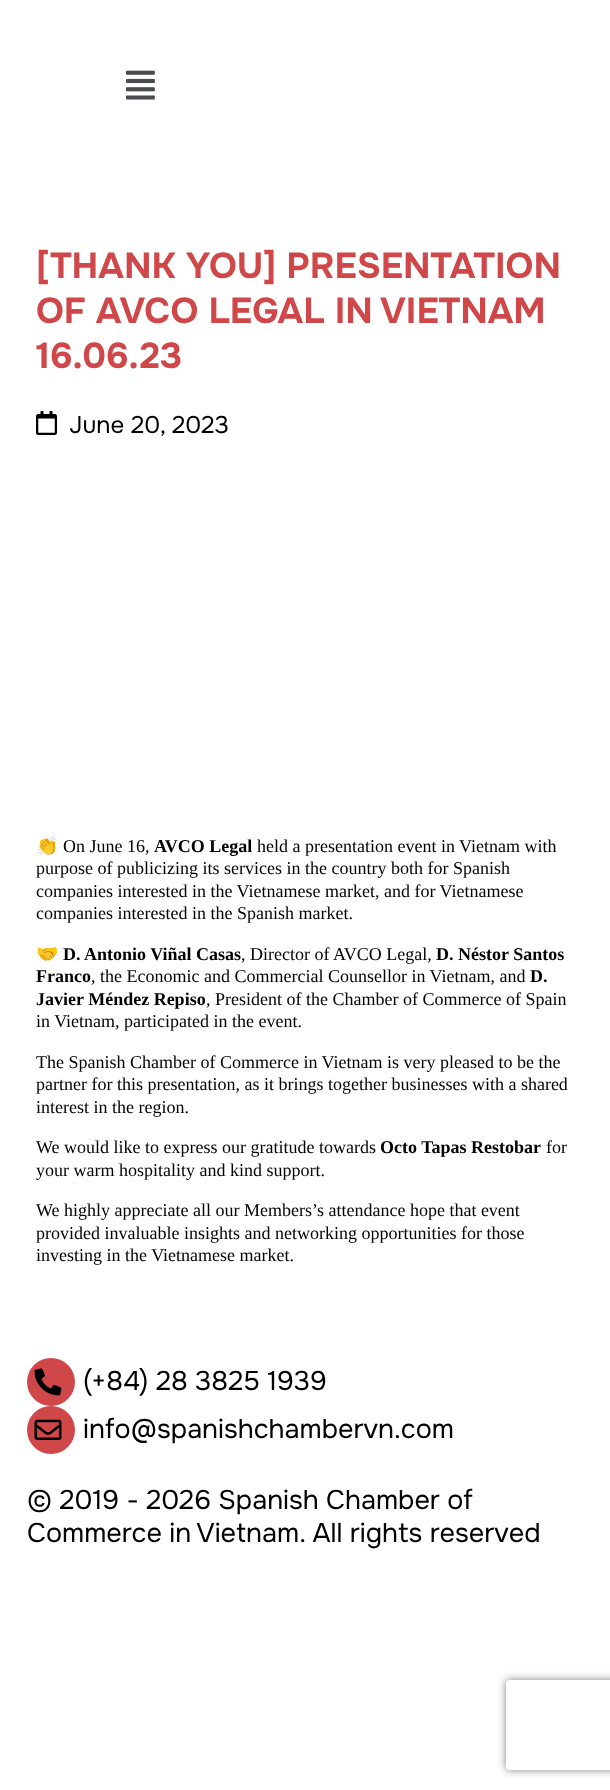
<svg xmlns="http://www.w3.org/2000/svg" xmlns:xlink="http://www.w3.org/1999/xlink" width="610" height="1790" viewBox="0 0 610 1790">
<style>
.cls-1{font:bold 36px Onest;fill:#d04749}
.cls-2{font:24px Onest;fill:#000000}
.cls-3{font:18px Noto Color Emoji;fill:#000000}
.cls-4{font:18px Liberation Serif;fill:#000000}
.cls-5{font:bold 18px Liberation Serif;fill:#000000}
.cls-6{font:27px Onest;fill:#000000}
</style>
<defs>
<clipPath id="clip1"><path d="M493 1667H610V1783H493ZM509 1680H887C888.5 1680 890 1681.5 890 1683V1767C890 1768.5 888.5 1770 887 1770H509C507.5 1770 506 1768.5 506 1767V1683C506 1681.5 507.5 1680 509 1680Z" clip-rule="evenodd"/></clipPath>
</defs>
<rect width="100%" height="100%" fill="#ffffff"/>
<image xlink:href="image0.png" x="126" y="70" width="29" height="30"/>
<image xlink:href="image1.png" x="36" y="411" width="21" height="24"/>
<circle fill="#d04749" cx="51" cy="1382" r="24"/>
<image xlink:href="image2.png" x="34" y="1368" width="28" height="28"/>
<circle fill="#d04749" cx="51" cy="1430" r="24"/>
<image xlink:href="image3.png" x="34" y="1419" width="28" height="21"/>
<g clip-path="url(#clip1)">
<rect fill="#808080" filter="blur(4px)" x="506" y="1680" width="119" height="90" rx="3"/>
</g>
<text class="cls-1"><tspan x="36" y="278">[THANK YOU] PRESENTATION</tspan><tspan x="36" y="323">OF AVCO LEGAL IN VIETNAM</tspan><tspan x="36" y="368">16.06.23</tspan></text>
<text class="cls-2" x="69" y="433">June 20, 2023</text>
<text class="cls-3" x="36" y="852">👏</text>
<text class="cls-4" x="63" y="852">On June 16,</text>
<text class="cls-5" x="154" y="852">AVCO Legal</text>
<text class="cls-4" x="257" y="852">held a presentation event in Vietnam with</text>
<text class="cls-4"><tspan x="36" y="874">purpose of publicizing its services in the country both for Spanish</tspan><tspan x="36" y="897">companies interested in the Vietnamese market, and for Vietnamese</tspan><tspan x="36" y="919">companies interested in the Spanish market.</tspan></text>
<text class="cls-3" x="36" y="960">🤝</text>
<text class="cls-5" x="63" y="960">D. Antonio Viñal Casas</text>
<text class="cls-4" x="241" y="960">, Director of AVCO Legal,</text>
<text class="cls-5" x="436" y="960">D. Néstor Santos</text>
<text class="cls-5" x="36" y="982">Franco</text>
<text class="cls-4" x="91" y="982">, the Economic and Commercial Counsellor in Vietnam, and</text>
<text class="cls-5" x="530" y="982">D.</text>
<text class="cls-5" x="36" y="1005">Javier Méndez Repiso</text>
<text class="cls-4" x="206" y="1005">, President of the Chamber of Commerce of Spain</text>
<text class="cls-4" x="36" y="1027">in Vietnam, participated in the event.</text>
<text class="cls-4"><tspan x="36" y="1068">The Spanish Chamber of Commerce in Vietnam is very pleased to be the</tspan><tspan x="36" y="1090">partner for this presentation, as it brings together businesses with a shared</tspan><tspan x="36" y="1113">interest in the region.</tspan></text>
<text class="cls-4" x="36" y="1153">We would like to express our gratitude towards</text>
<text class="cls-5" x="380" y="1153">Octo Tapas Restobar</text>
<text class="cls-4" x="546" y="1153">for</text>
<text class="cls-4" x="36" y="1176">your warm hospitality and kind support.</text>
<text class="cls-4"><tspan x="36" y="1216">We highly appreciate all our Members’s attendance hope that event</tspan><tspan x="36" y="1239">provided invaluable insights and networking opportunities for those</tspan><tspan x="36" y="1261">investing in the Vietnamese market.</tspan></text>
<text class="cls-6"><tspan x="83" y="1390">(+84) 28 3825 1939</tspan><tspan x="83" y="1438">info@spanishchambervn.com</tspan></text>
<text class="cls-6"><tspan x="27" y="1509">© 2019 - 2026 Spanish Chamber of</tspan><tspan x="27" y="1542">Commerce in Vietnam. All rights reserved</tspan></text>
</svg>
